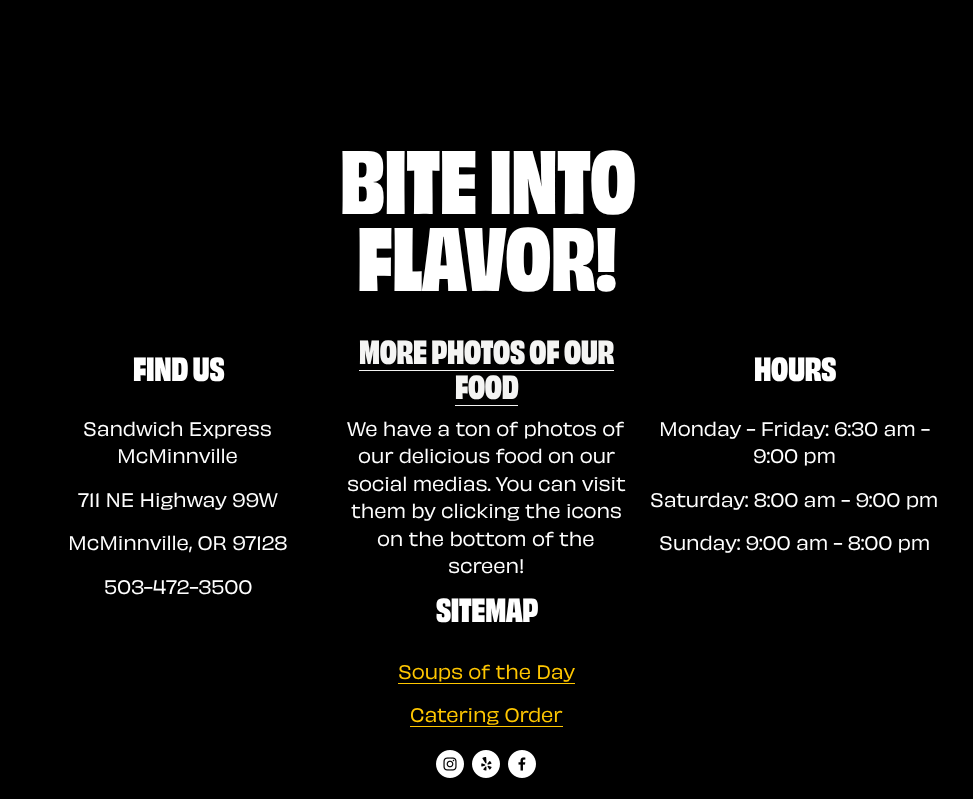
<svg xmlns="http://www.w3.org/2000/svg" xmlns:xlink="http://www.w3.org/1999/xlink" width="973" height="799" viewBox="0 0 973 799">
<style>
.cls-1{font:500 84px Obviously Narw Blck;letter-spacing:-0.75px;fill:#ffffff}
.cls-2{font:500 31.25px Obviously Narw Blck;letter-spacing:-0.3px;fill:#ffffff}
.cls-3{font:500 31.25px Obviously Narw Blck;letter-spacing:-0.3px;fill:#f4f4f3}
.cls-4{font:600 18.3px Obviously;letter-spacing:-0.2px;fill:#ffffff}
.cls-5{font:600 18.3px Obviously;letter-spacing:-0.2px;fill:#ffc700}
</style>
<rect width="100%" height="100%" fill="#000000"/>
<rect fill="#f4f4f3" x="359" y="370" width="255" height="1"/>
<rect fill="#f4f4f3" x="455" y="405" width="63" height="1"/>
<rect fill="#ffc700" x="398" y="683" width="177" height="1"/>
<rect fill="#ffc700" x="410" y="726" width="153" height="1"/>
<image xlink:href="image0.png" x="436" y="750" width="28" height="28"/>
<image xlink:href="image1.png" x="472" y="750" width="28" height="28"/>
<image xlink:href="image2.png" x="508" y="750" width="28" height="28"/>
<text class="cls-1" x="340" y="214">BITE INTO</text>
<text class="cls-1" x="357" y="291">FLAVOR!</text>
<text class="cls-2" x="133" y="381">FIND US</text>
<text class="cls-3" x="359" y="364">MORE PHOTOS OF OUR</text>
<text class="cls-3" x="455" y="399">FOOD</text>
<text class="cls-2" x="754" y="381">HOURS</text>
<text class="cls-4" x="83" y="436">Sandwich Express</text>
<text class="cls-4" x="117" y="463">McMinnville</text>
<text class="cls-4" x="78" y="507">711 NE Highway 99W</text>
<text class="cls-4" x="68" y="550">McMinnville, OR 97128</text>
<text class="cls-4" x="104" y="594">503-472-3500</text>
<text class="cls-4" x="347" y="436">We have a ton of photos of</text>
<text class="cls-4" x="358" y="463">our delicious food on our</text>
<text class="cls-4" x="347" y="491">social medias. You can visit</text>
<text class="cls-4" x="351" y="518">them by clicking the icons</text>
<text class="cls-4" x="377" y="546">on the bottom of the</text>
<text class="cls-4" x="448" y="573">screen!</text>
<text class="cls-4" x="659" y="436">Monday - Friday: 6:30 am -</text>
<text class="cls-4" x="753" y="463">9:00 pm</text>
<text class="cls-4" x="650" y="507">Saturday: 8:00 am - 9:00 pm</text>
<text class="cls-4" x="659" y="550">Sunday: 9:00 am - 8:00 pm</text>
<text class="cls-2" x="436" y="622">SITEMAP</text>
<text class="cls-5" x="398" y="679">Soups of the Day</text>
<text class="cls-5" x="410" y="722">Catering Order</text>
</svg>
